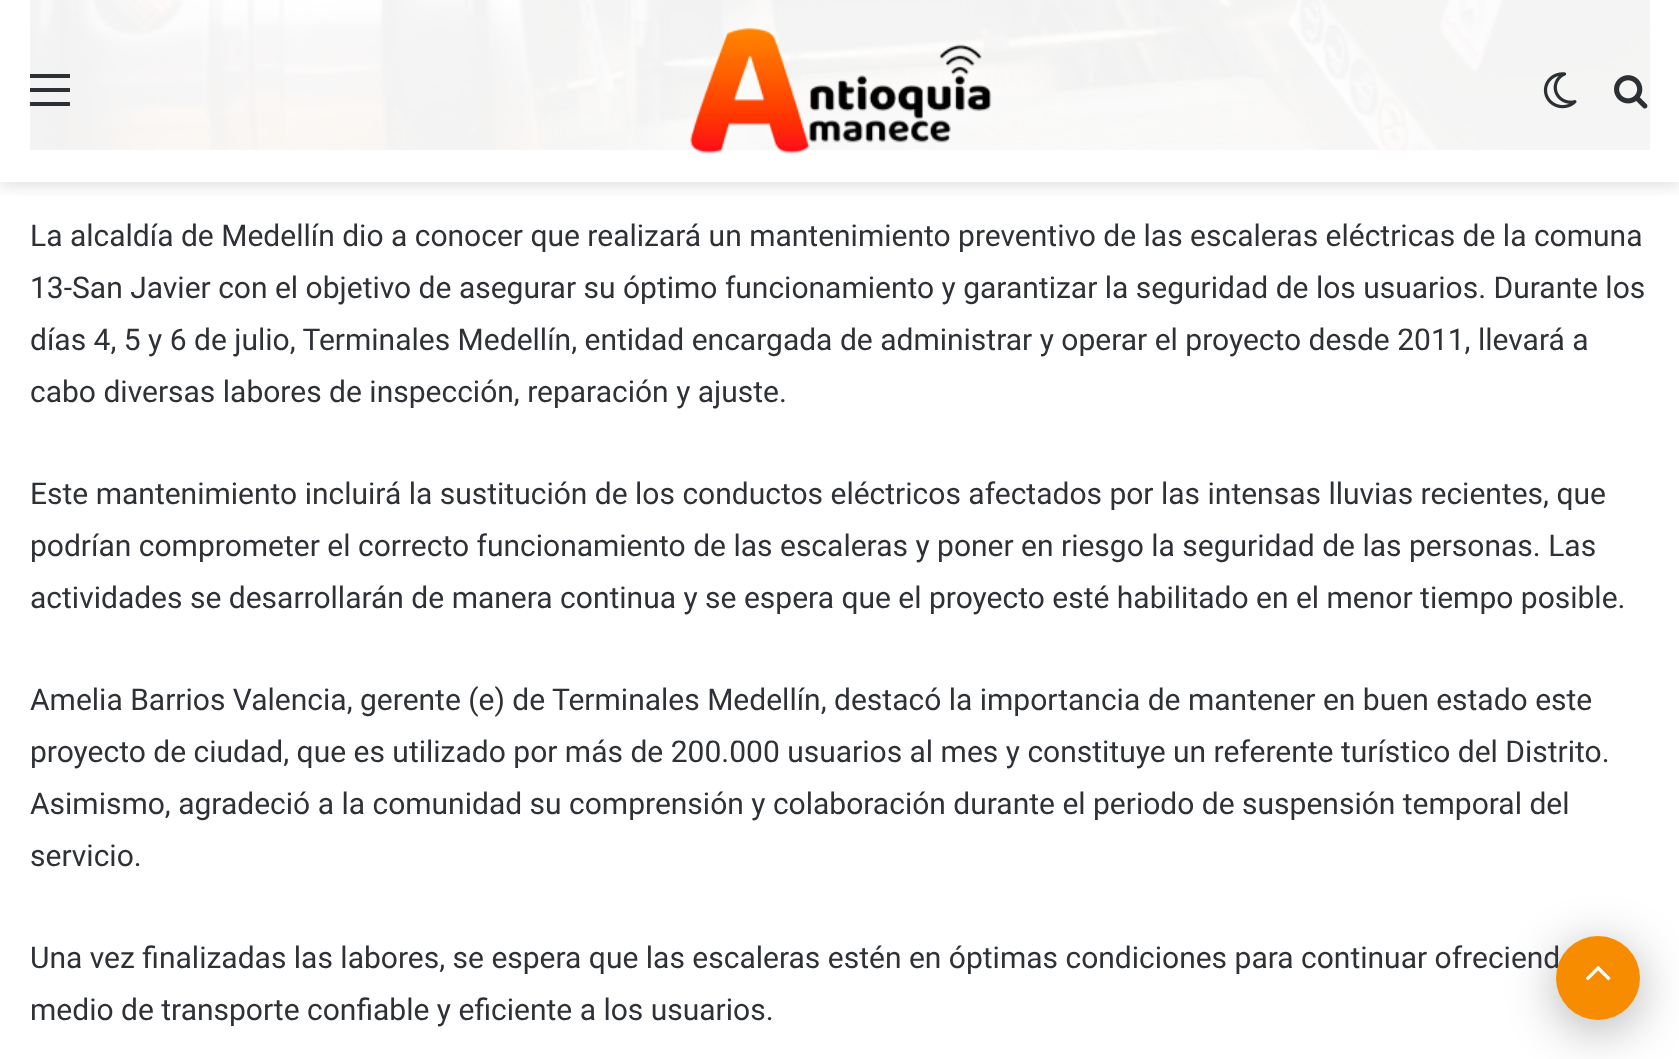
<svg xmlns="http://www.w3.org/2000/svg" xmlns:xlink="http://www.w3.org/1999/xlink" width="1679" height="1059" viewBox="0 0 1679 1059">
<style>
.cls-1{font:30px Roboto;fill:#2e3136}
</style>
<defs>
<clipPath id="clip1"><rect x="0" y="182" width="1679" height="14"/></clipPath>
</defs>
<rect width="100%" height="100%" fill="#ffffff"/>
<image xlink:href="image3.png" x="30" y="0" width="1620" height="150"/>
<g clip-path="url(#clip1)">
<rect fill="#636363" fill-opacity="0.2" filter="blur(8px)" x="0" y="4" width="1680" height="182"/>
</g>
<rect fill="#2c2f34" x="30" y="88" width="40" height="4"/>
<rect fill="#2c2f34" x="30" y="74" width="40" height="4"/>
<rect fill="#2c2f34" x="30" y="102" width="40" height="4"/>
<image xlink:href="image0.png" x="690" y="28" width="302" height="126"/>
<image xlink:href="image1.png" x="1543" y="72" width="34" height="37"/>
<image xlink:href="image2.png" x="1614" y="75" width="34" height="34"/>
<rect fill="#000000" fill-opacity="0.3" filter="blur(25px)" x="1556" y="946" width="84" height="84" rx="42"/>
<text class="cls-1"><tspan x="30" y="246">La alcaldía de Medellín dio a conocer que realizará un mantenimiento preventivo de las escaleras eléctricas de la comuna</tspan><tspan x="30" y="298">13-San Javier con el objetivo de asegurar su óptimo funcionamiento y garantizar la seguridad de los usuarios. Durante los</tspan><tspan x="30" y="350">días 4, 5 y 6 de julio, Terminales Medellín, entidad encargada de administrar y operar el proyecto desde 2011, llevará a</tspan><tspan x="30" y="402">cabo diversas labores de inspección, reparación y ajuste.</tspan></text>
<text class="cls-1"><tspan x="30" y="504">Este mantenimiento incluirá la sustitución de los conductos eléctricos afectados por las intensas lluvias recientes, que</tspan><tspan x="30" y="556">podrían comprometer el correcto funcionamiento de las escaleras y poner en riesgo la seguridad de las personas. Las</tspan><tspan x="30" y="608">actividades se desarrollarán de manera continua y se espera que el proyecto esté habilitado en el menor tiempo posible.</tspan></text>
<text class="cls-1"><tspan x="30" y="710">Amelia Barrios Valencia, gerente (e) de Terminales Medellín, destacó la importancia de mantener en buen estado este</tspan><tspan x="30" y="762">proyecto de ciudad, que es utilizado por más de 200.000 usuarios al mes y constituye un referente turístico del Distrito.</tspan><tspan x="30" y="814">Asimismo, agradeció a la comunidad su comprensión y colaboración durante el periodo de suspensión temporal del</tspan><tspan x="30" y="866">servicio.</tspan></text>
<text class="cls-1"><tspan x="30" y="968">Una vez finalizadas las labores, se espera que las escaleras estén en óptimas condiciones para continuar ofreciend</tspan><tspan x="30" y="1020">medio de transporte confiable y eficiente a los usuarios.</tspan></text>
<circle fill="#f88c00" cx="1598" cy="978" r="42"/>
<image xlink:href="image4.png" x="1585" y="966" width="26" height="15"/>
</svg>
